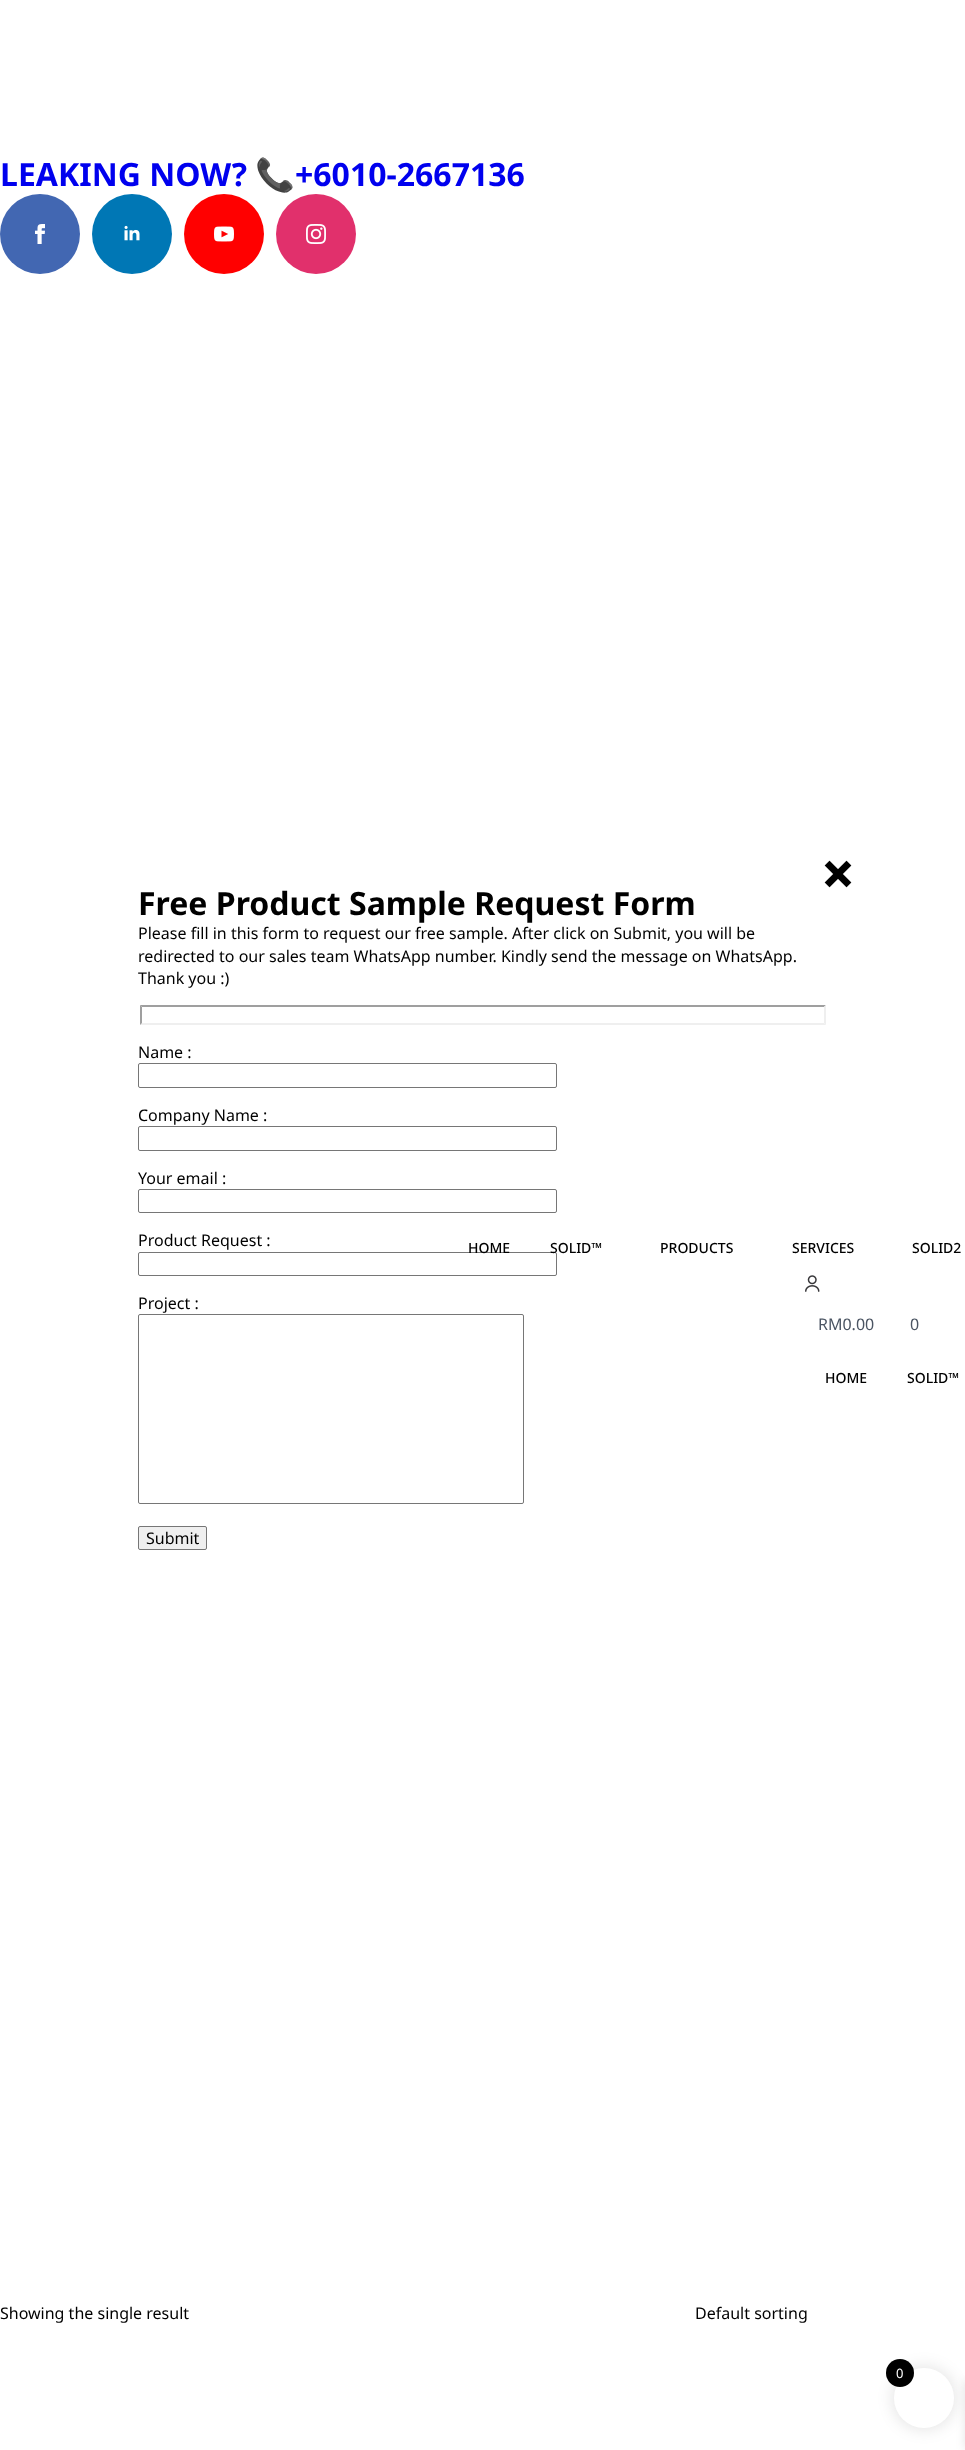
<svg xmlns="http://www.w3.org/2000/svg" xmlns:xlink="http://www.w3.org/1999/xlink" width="965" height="2450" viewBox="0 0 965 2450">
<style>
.cls-1{font:bold 32px Noto Sans;fill:#0000ee}
.cls-2{font:bold 32px Noto Color Emoji;fill:#0000ee}
.cls-3{font:bold 32px Noto Sans;fill:#000000}
.cls-4{font:16px Noto Sans;fill:#000000}
.cls-5{font:500 14px Noto Sans;fill:#000000}
.cls-6{font:16px Noto Sans;fill:#4b5563}
.cls-7{font:13px Noto Sans;fill:#ffffff}
</style>
<rect width="100%" height="100%" fill="#ffffff"/>
<image xlink:href="image0.png" x="824" y="860" width="28" height="28"/>
<path fill="#9f9f9f" d="M140 1005H826L824 1007H142Z"/>
<path fill="#efefef" d="M826 1005V1025L824 1023V1007Z"/>
<path fill="#efefef" d="M826 1025H140L142 1023H824Z"/>
<path fill="#9f9f9f" d="M140 1025V1005L142 1007V1023Z"/>
<rect fill="none" stroke="#767676" x="138.5" y="1063.5" width="418" height="24" rx="1.5"/>
<rect fill="none" stroke="#767676" x="138.5" y="1126.5" width="418" height="24" rx="1.5"/>
<rect fill="none" stroke="#767676" x="138.5" y="1189.5" width="418" height="23" rx="1.5"/>
<rect fill="none" stroke="#767676" x="138.5" y="1252.5" width="418" height="23" rx="1.5"/>
<rect fill="none" stroke="#767676" x="138.5" y="1314.5" width="385" height="189" rx="1.5"/>
<rect fill="#efefef" stroke="#767676" x="138.5" y="1526.5" width="68" height="23" rx="1.5"/>
<circle fill="#4267b2" cx="40" cy="234" r="40"/>
<image xlink:href="image1.png" x="35" y="224" width="10" height="20"/>
<circle fill="#0077b5" cx="132" cy="234" r="40"/>
<image xlink:href="image2.png" x="124" y="225" width="16" height="16"/>
<circle fill="#ff0000" cx="224" cy="234" r="40"/>
<image xlink:href="image3.png" x="214" y="226" width="20" height="16"/>
<circle fill="#e1306c" cx="316" cy="234" r="40"/>
<image xlink:href="image4.png" x="306" y="224" width="20" height="20"/>
<image xlink:href="image5.png" x="805" y="1275" width="15" height="17"/>
<rect fill="#000000" fill-opacity="0.1" filter="blur(7.5px)" x="892" y="2366" width="64" height="64" rx="32"/>
<rect fill="#000000" fill-opacity="0.1" filter="blur(5px)" x="965" y="2380" width="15" height="69"/>
<circle fill="#ffffff" cx="924" cy="2398" r="30"/>
<circle fill="#000000" cx="900" cy="2373" r="14"/>
<text class="cls-1" x="0" y="186">LEAKING NOW?</text>
<text class="cls-2" x="255" y="186">📞</text>
<text class="cls-1" x="295" y="186">+6010-2667136</text>
<text class="cls-3" x="138" y="915">Free Product Sample Request Form</text>
<text class="cls-4"><tspan x="138" y="939">Please fill in this form to request our free sample. After click on Submit, you will be</tspan><tspan x="138" y="962">redirected to our sales team WhatsApp number. Kindly send the message on WhatsApp.</tspan><tspan x="138" y="984">Thank you :)</tspan></text>
<text class="cls-4" x="138" y="1058">Name :</text>
<text class="cls-4" x="138" y="1121">Company Name :</text>
<text class="cls-4" x="138" y="1184">Your email :</text>
<text class="cls-4" x="138" y="1246">Product Request :</text>
<text class="cls-4" x="138" y="1309">Project :</text>
<text class="cls-4" x="146" y="1544">Submit</text>
<text class="cls-5" x="468" y="1253">HOME</text>
<text class="cls-5" x="550" y="1253">SOLID™</text>
<text class="cls-5" x="660" y="1253">PRODUCTS</text>
<text class="cls-5" x="792" y="1253">SERVICES</text>
<text class="cls-5" x="912" y="1253">SOLID2</text>
<text class="cls-6" x="818" y="1330">RM0.00</text>
<text class="cls-6" x="910" y="1330">0</text>
<text class="cls-5" x="825" y="1383">HOME</text>
<text class="cls-5" x="907" y="1383">SOLID™</text>
<text class="cls-4" x="0" y="2319">Showing the single result</text>
<text class="cls-4" x="695" y="2319">Default sorting</text>
<text class="cls-7" x="896" y="2378">0</text>
</svg>
